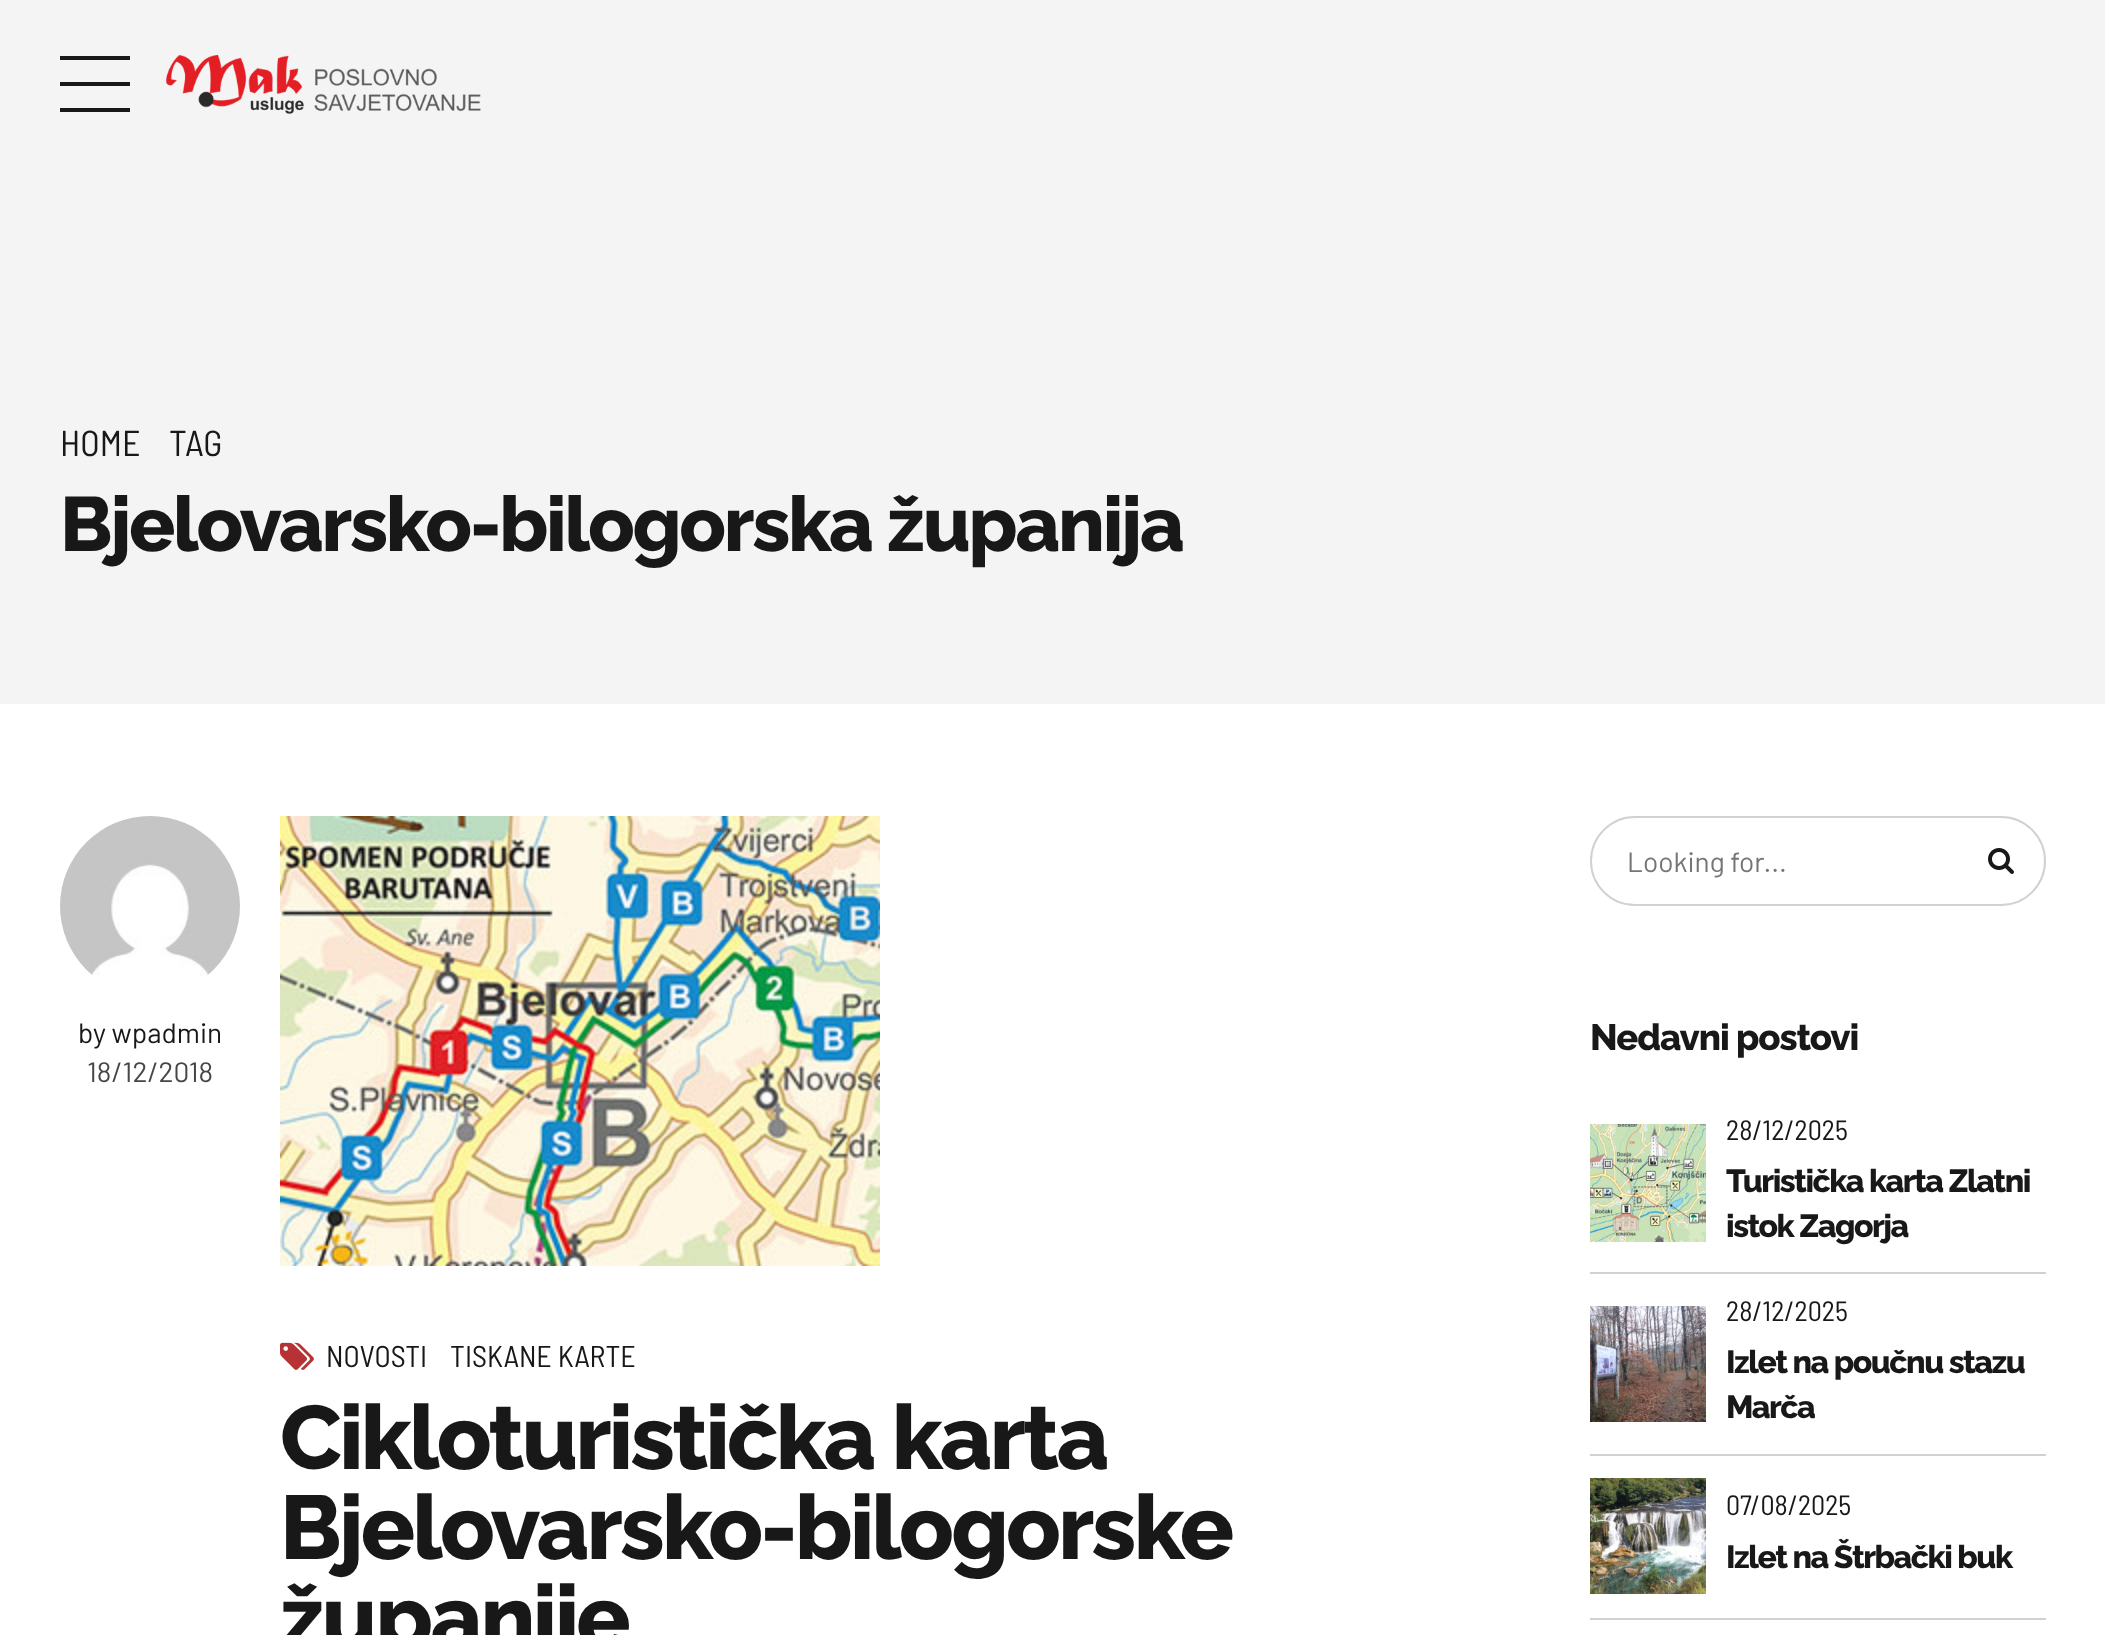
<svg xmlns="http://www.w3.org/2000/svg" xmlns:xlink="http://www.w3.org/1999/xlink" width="2105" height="1635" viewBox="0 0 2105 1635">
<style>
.cls-1{font:36px Barlow Semi Condensed;fill:#181818}
.cls-2{font:800 76.75px Raleway;letter-spacing:-2.3px;fill:#181818}
.cls-3{font:28px Barlow;fill:#181818}
.cls-4{font:28px Barlow;fill:#464646}
.cls-5{font:30px Barlow Semi Condensed;fill:#181818}
.cls-6{font:800 90px Raleway;letter-spacing:-2.7px;fill:#181818}
.cls-7{font:28px Barlow;fill:#757575}
.cls-8{font:800 36.5px Raleway;letter-spacing:-1.1px;fill:#181818}
.cls-9{font:28px Barlow Semi Condensed;fill:#181818}
.cls-10{font:800 32px Raleway;letter-spacing:-1.5px;fill:#181818}
</style>
<rect width="100%" height="100%" fill="#ffffff"/>
<rect fill="#f4f4f4" x="0" y="0" width="2105" height="704"/>
<rect fill="#181818" x="60" y="56" width="70" height="4"/>
<rect fill="#181818" x="60" y="82" width="70" height="4"/>
<rect fill="#181818" x="60" y="108" width="70" height="4"/>
<image xlink:href="image0.png" x="166" y="55" width="315" height="59"/>
<image xlink:href="image1.png" x="60" y="816" width="180" height="161"/>
<image xlink:href="image2.png" x="280" y="816" width="600" height="450"/>
<image xlink:href="image3.png" x="280" y="1342" width="34" height="28"/>
<rect fill="none" stroke="#d1d1d1" stroke-width="2" x="1591" y="817" width="454" height="88" rx="44"/>
<image xlink:href="image4.png" x="1988" y="848" width="26" height="26"/>
<rect fill="#d1d1d1" x="1590" y="1272" width="456" height="2"/>
<image xlink:href="image5.png" x="1590" y="1124" width="116" height="118"/>
<rect fill="#d1d1d1" x="1590" y="1454" width="456" height="2"/>
<image xlink:href="image6.png" x="1590" y="1306" width="116" height="116"/>
<rect fill="#d1d1d1" x="1590" y="1618" width="456" height="2"/>
<image xlink:href="image7.png" x="1590" y="1478" width="116" height="116"/>
<text class="cls-1" x="60" y="456">HOME</text>
<text class="cls-1" x="169" y="456">TAG</text>
<text class="cls-2" x="60" y="551">Bjelovarsko-bilogorska županija</text>
<text class="cls-3" x="78" y="1043">by wpadmin</text>
<text class="cls-4" x="87" y="1082">18/12/2018</text>
<text class="cls-5" x="326" y="1367">NOVOSTI</text>
<text class="cls-5" x="450" y="1367">TISKANE KARTE</text>
<text class="cls-6"><tspan x="280" y="1469">Cikloturistička karta</tspan><tspan x="280" y="1559">Bjelovarsko-bilogorske</tspan><tspan x="280" y="1649">županije</tspan></text>
<text class="cls-7" x="1627" y="872">Looking for...</text>
<text class="cls-8" x="1590" y="1050">Nedavni postovi</text>
<text class="cls-9" x="1726" y="1140">28/12/2025</text>
<text class="cls-10"><tspan x="1726" y="1192">Turistička karta Zlatni</tspan><tspan x="1726" y="1237">istok Zagorja</tspan></text>
<text class="cls-9" x="1726" y="1321">28/12/2025</text>
<text class="cls-10"><tspan x="1726" y="1373">Izlet na poučnu stazu</tspan><tspan x="1726" y="1418">Marča</tspan></text>
<text class="cls-9" x="1726" y="1515">07/08/2025</text>
<text class="cls-10" x="1726" y="1568">Izlet na Štrbački buk</text>
</svg>
